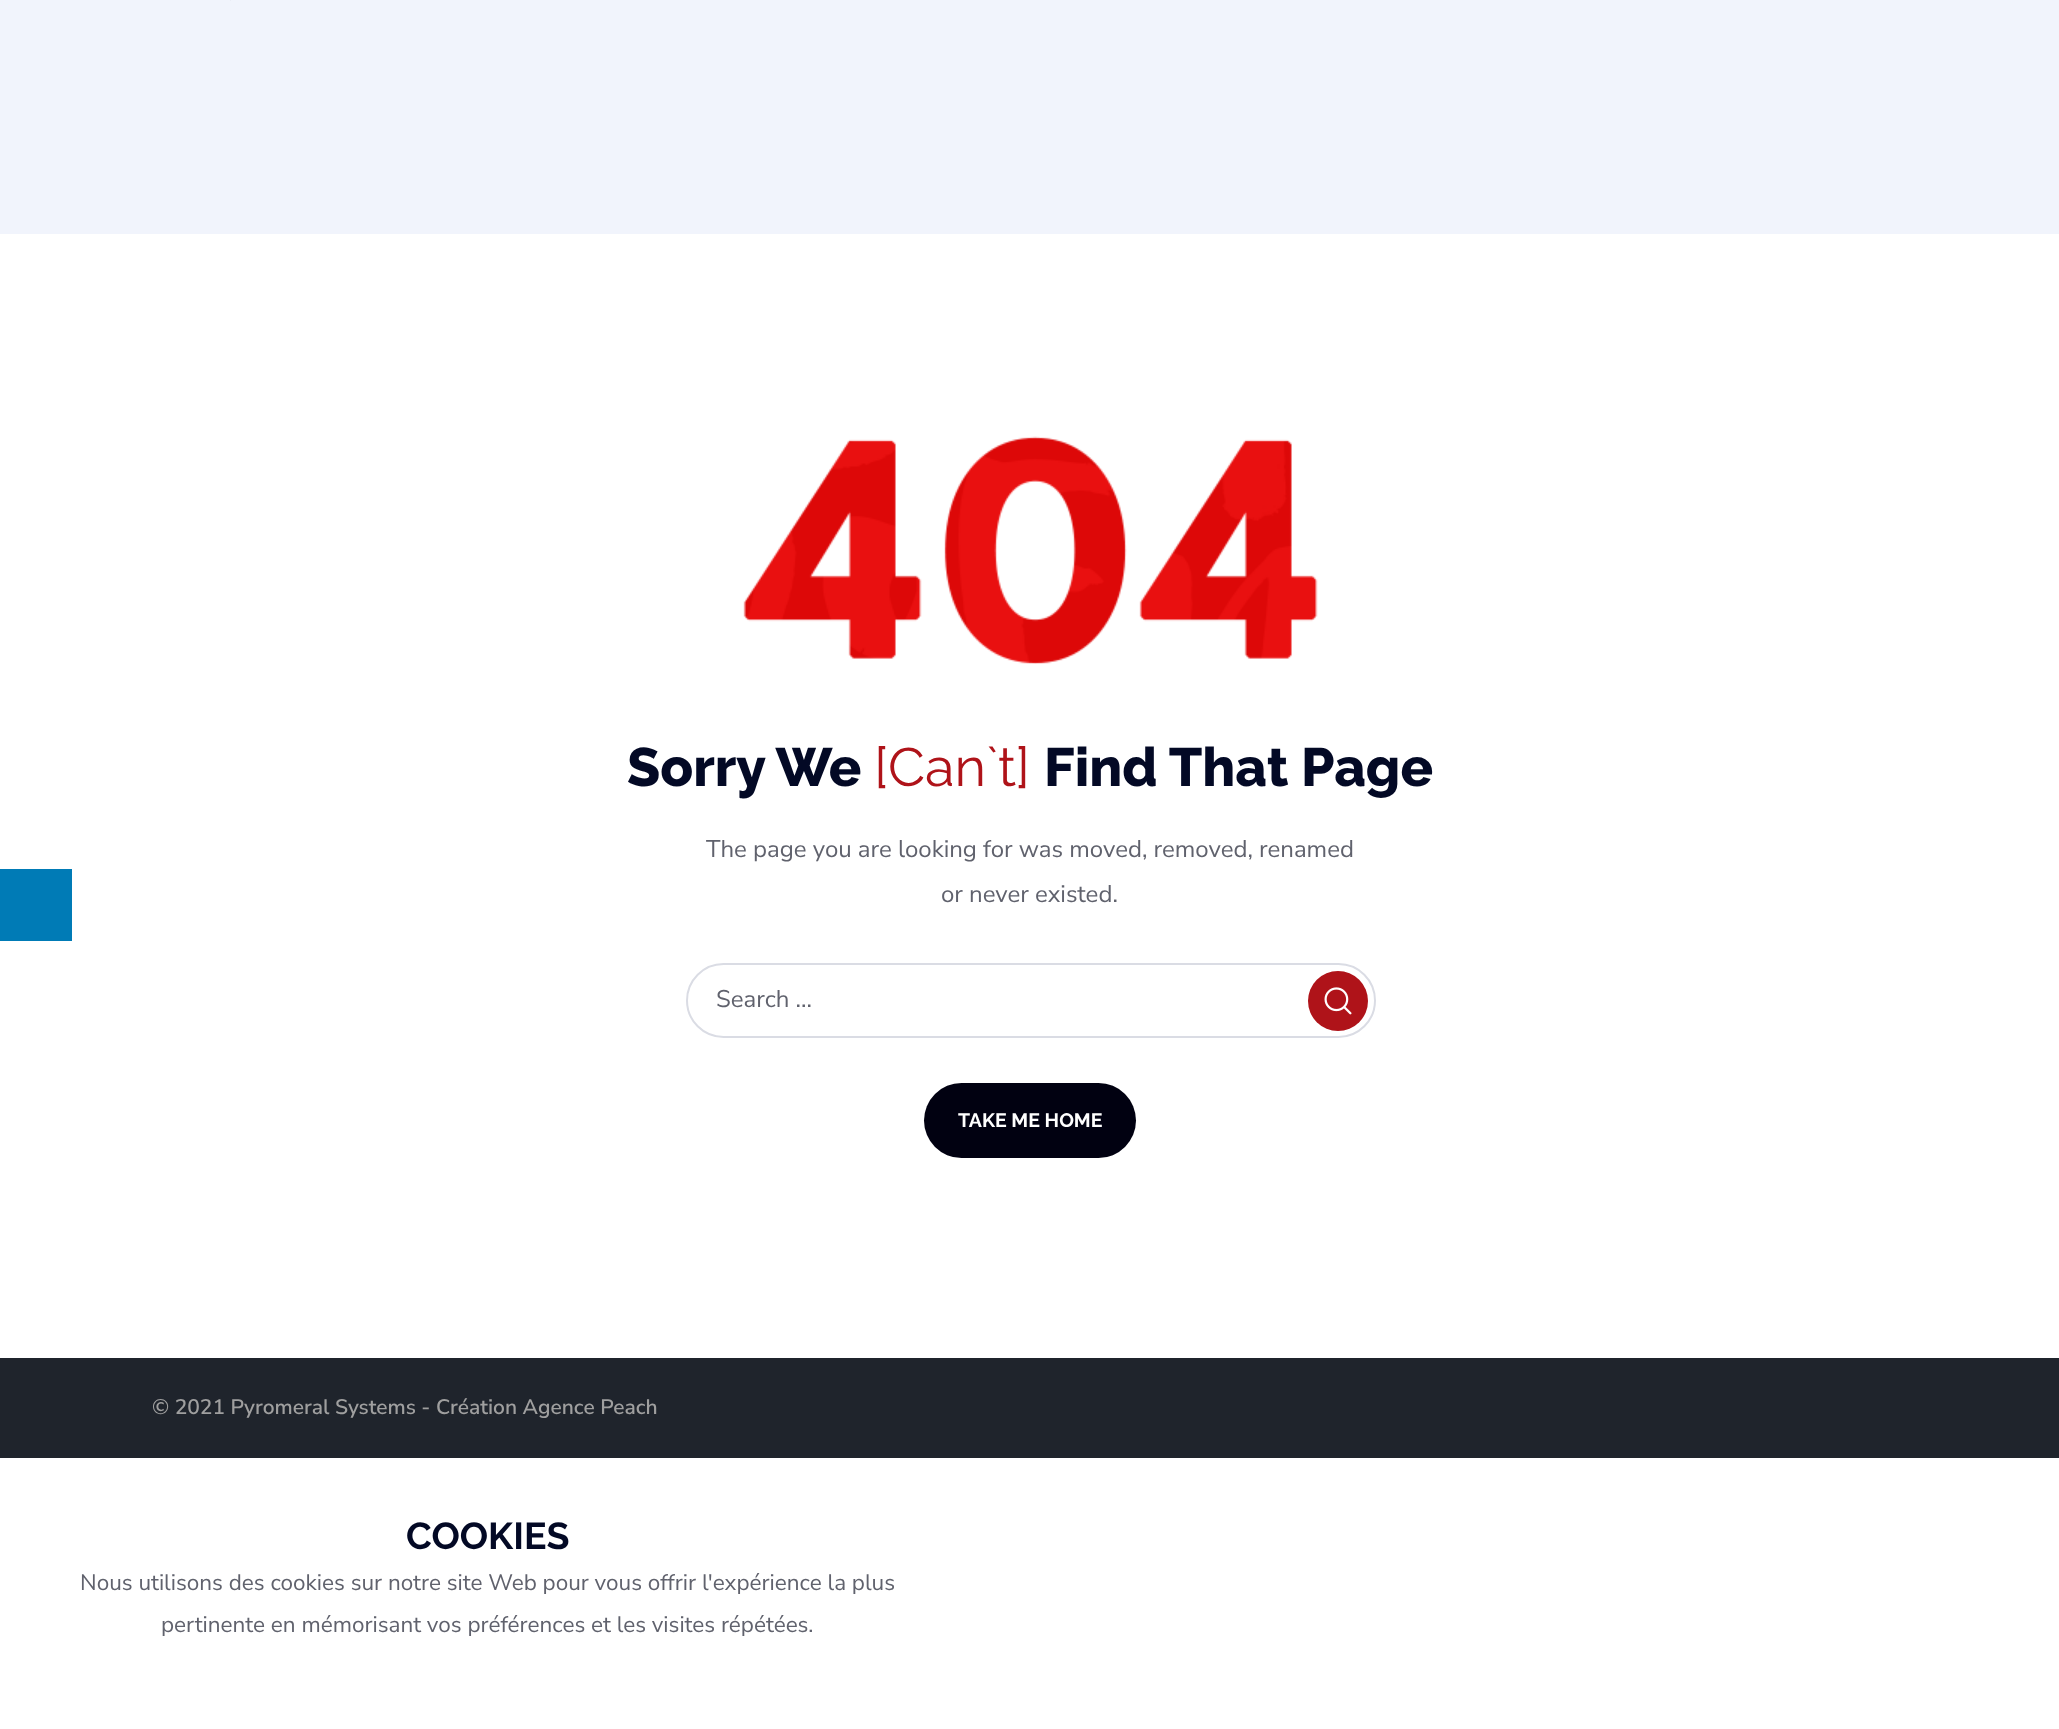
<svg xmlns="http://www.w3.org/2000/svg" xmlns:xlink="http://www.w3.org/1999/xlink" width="2059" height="1729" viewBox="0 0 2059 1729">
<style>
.cls-1{font:800 54px Raleway;fill:#030925}
.cls-2{font:54px Raleway;fill:#af1319}
.cls-3{font:24px Nunito Sans;fill:#60626d}
.cls-4{font:bold 19.5px Raleway;fill:#ffffff}
.cls-5{font:600 21px Nunito Sans;fill:#9f9f9f}
.cls-6{font:bold 37.5px Raleway;fill:#030925}
.cls-7{font:22.5px Nunito Sans;fill:#60626d}
</style>
<rect width="100%" height="100%" fill="#ffffff"/>
<rect fill="#f1f4fc" x="0" y="0" width="2059" height="234"/>
<rect fill="#eaedf6" x="230" y="0" width="1" height="1"/>
<rect fill="#007bb6" x="0" y="869" width="72" height="72"/>
<image xlink:href="image0.png" x="743" y="436" width="575" height="228"/>
<rect fill="none" stroke="#dadce4" stroke-width="2" x="687" y="964" width="688" height="73" rx="36.5"/>
<circle fill="#af1319" cx="1338" cy="1001" r="30"/>
<image xlink:href="image1.png" x="1324" y="987" width="28" height="28"/>
<rect fill="#010111" x="924" y="1083" width="212" height="75" rx="37.5"/>
<rect fill="#1f242c" x="0" y="1358" width="2059" height="100"/>
<text class="cls-1" x="627" y="786">Sorry We</text>
<text class="cls-2" x="874" y="786">[Can`t]</text>
<text class="cls-1" x="1044" y="786">Find That Page</text>
<text class="cls-3" x="706" y="857">The page you are looking for was moved, removed, renamed</text>
<text class="cls-3" x="941" y="902">or never existed.</text>
<text class="cls-3" x="716" y="1007">Search …</text>
<text class="cls-4" x="958" y="1127">TAKE ME HOME</text>
<text class="cls-5" x="152" y="1414">© 2021 Pyromeral Systems - Création Agence Peach</text>
<text class="cls-6" x="406" y="1549">COOKIES</text>
<text class="cls-7" x="80" y="1590">Nous utilisons des cookies sur notre site Web pour vous offrir l'expérience la plus</text>
<text class="cls-7" x="161" y="1632">pertinente en mémorisant vos préférences et les visites répétées.</text>
</svg>
